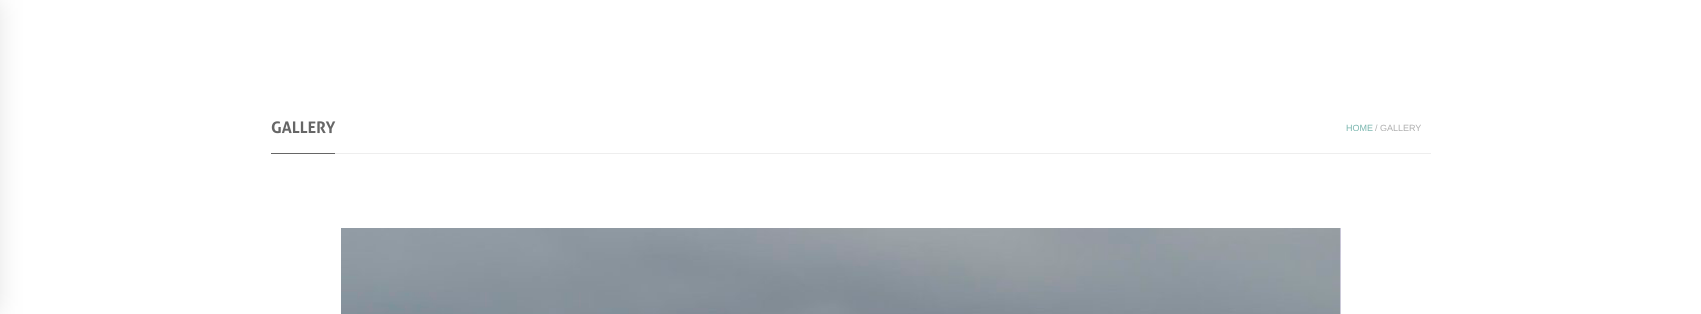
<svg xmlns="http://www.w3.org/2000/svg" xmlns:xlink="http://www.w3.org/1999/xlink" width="1701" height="314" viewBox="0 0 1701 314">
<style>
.cls-1{font:9px Liberation Sans;fill:#80bab3}
.cls-2{font:9px Liberation Sans;fill:#b3b3b3}
</style>
<rect width="100%" height="100%" fill="#ffffff"/>
<rect fill="#000000" fill-opacity="0.1" filter="blur(12.5px)" x="-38" y="0" width="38" height="314"/>
<rect fill="#eeeeee" x="335" y="153" width="1096" height="1"/>
<rect fill="#666666" x="271" y="153" width="64" height="1"/>
<image xlink:href="image0.png" x="271" y="121" width="65" height="13"/>
<image xlink:href="image1.png" x="341" y="228" width="999" height="86"/>
<image xlink:href="image2.png" x="1340" y="228" width="1" height="86"/>
<text class="cls-1" x="1346" y="131">HOME</text>
<text class="cls-2" x="1375" y="131">/ GALLERY</text>
</svg>
